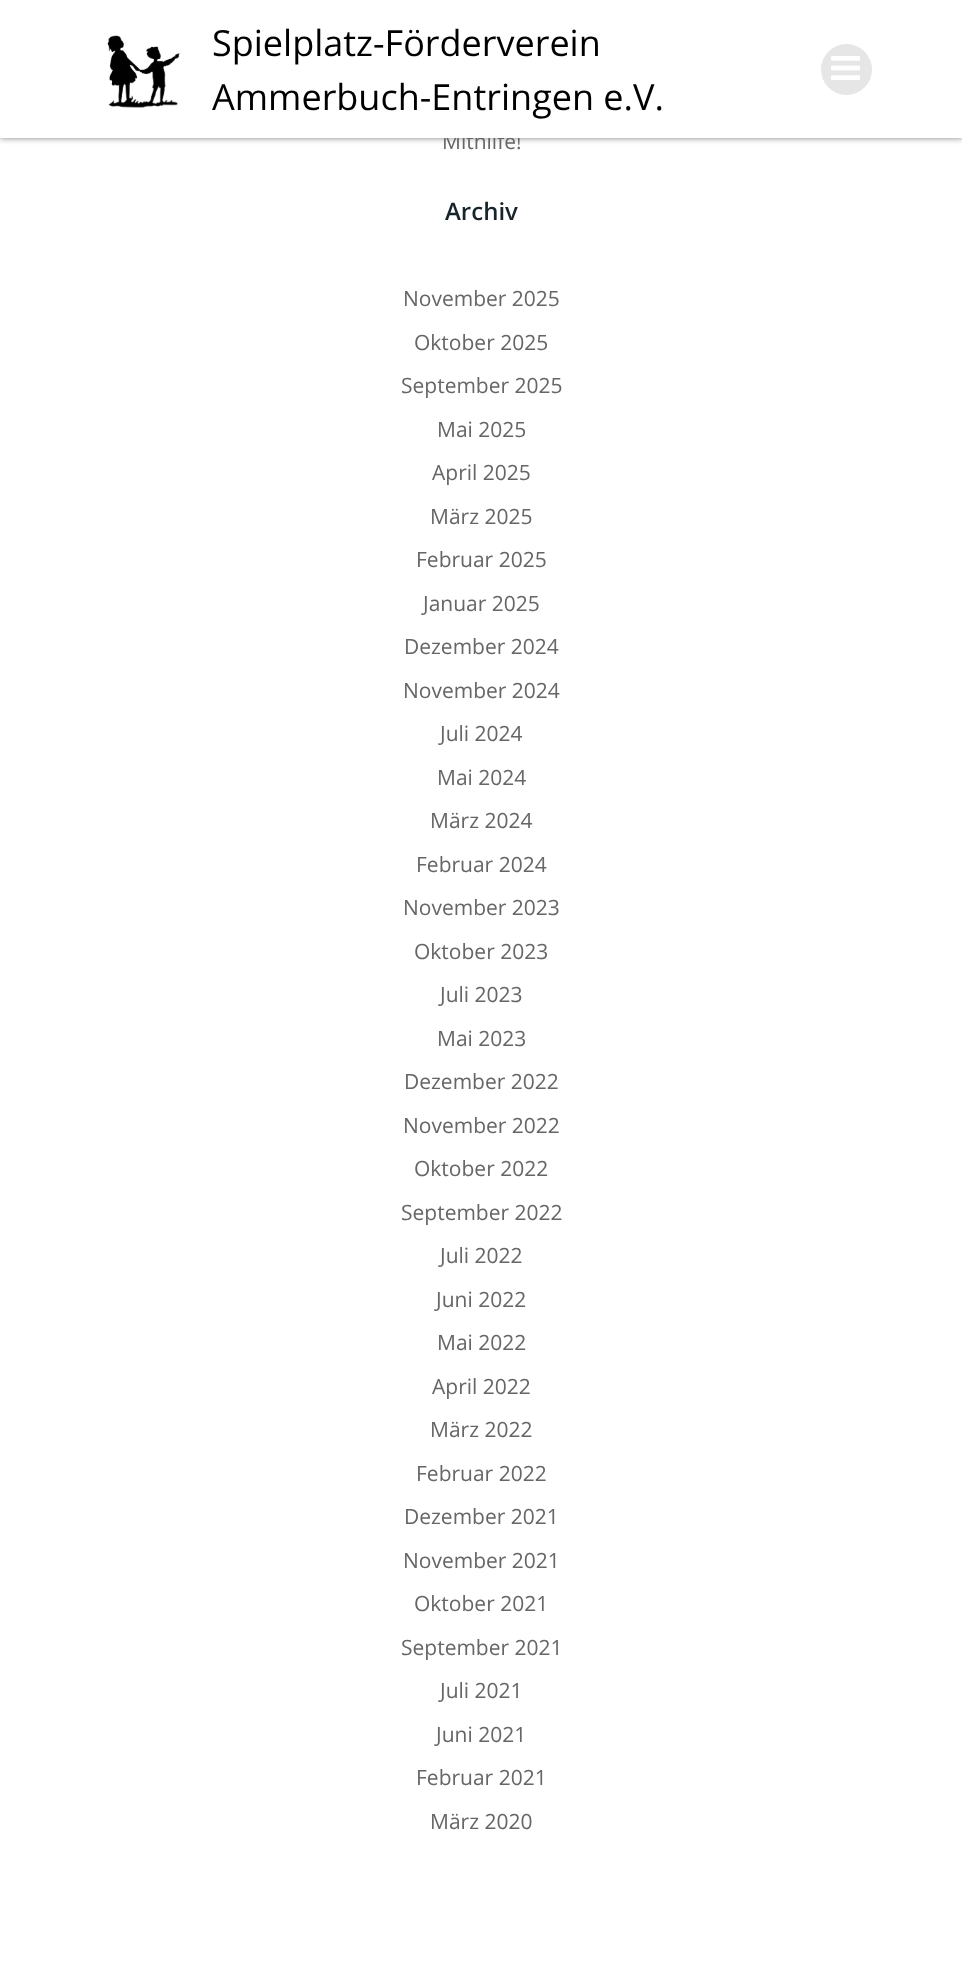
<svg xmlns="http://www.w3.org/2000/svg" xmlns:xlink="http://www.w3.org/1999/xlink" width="962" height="1984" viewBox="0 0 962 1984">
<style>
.cls-1{font:21px Open Sans;fill:#666666}
.cls-2{font:36px Open Sans;fill:#000000}
.cls-3{font:600 24px Open Sans;fill:#17252a}
</style>
<rect width="100%" height="100%" fill="#ffffff"/>
<rect fill="#000000" fill-opacity="0.5" filter="blur(3px)" x="0" y="0" width="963" height="138"/>
<text class="cls-1" x="442" y="149">Mithilfe!</text>
<rect fill="#ffffff" x="0" y="0" width="962" height="138"/>
<circle fill="#e6e6e6" cx="846.5" cy="69.5" r="25.5"/>
<image xlink:href="image1.png" x="831" y="56" width="29" height="24"/>
<text class="cls-2" x="212" y="110">Ammerbuch-Entringen e.V.</text>
<text class="cls-2" x="212" y="56">Spielplatz-Förderverein</text>
<image xlink:href="image0.png" x="107" y="35" width="73" height="73"/>
<text class="cls-3" x="445" y="220">Archiv</text>
<text class="cls-1" x="403" y="306">November 2025</text>
<text class="cls-1" x="414" y="350">Oktober 2025</text>
<text class="cls-1" x="401" y="393">September 2025</text>
<text class="cls-1" x="437" y="437">Mai 2025</text>
<text class="cls-1" x="432" y="480">April 2025</text>
<text class="cls-1" x="430" y="524">März 2025</text>
<text class="cls-1" x="416" y="567">Februar 2025</text>
<text class="cls-1" x="423" y="611">Januar 2025</text>
<text class="cls-1" x="404" y="654">Dezember 2024</text>
<text class="cls-1" x="403" y="698">November 2024</text>
<text class="cls-1" x="440" y="741">Juli 2024</text>
<text class="cls-1" x="437" y="785">Mai 2024</text>
<text class="cls-1" x="430" y="828">März 2024</text>
<text class="cls-1" x="416" y="872">Februar 2024</text>
<text class="cls-1" x="403" y="915">November 2023</text>
<text class="cls-1" x="414" y="959">Oktober 2023</text>
<text class="cls-1" x="440" y="1002">Juli 2023</text>
<text class="cls-1" x="437" y="1046">Mai 2023</text>
<text class="cls-1" x="404" y="1089">Dezember 2022</text>
<text class="cls-1" x="403" y="1133">November 2022</text>
<text class="cls-1" x="414" y="1176">Oktober 2022</text>
<text class="cls-1" x="401" y="1220">September 2022</text>
<text class="cls-1" x="440" y="1263">Juli 2022</text>
<text class="cls-1" x="436" y="1307">Juni 2022</text>
<text class="cls-1" x="437" y="1350">Mai 2022</text>
<text class="cls-1" x="432" y="1394">April 2022</text>
<text class="cls-1" x="430" y="1437">März 2022</text>
<text class="cls-1" x="416" y="1481">Februar 2022</text>
<text class="cls-1" x="404" y="1524">Dezember 2021</text>
<text class="cls-1" x="403" y="1568">November 2021</text>
<text class="cls-1" x="414" y="1611">Oktober 2021</text>
<text class="cls-1" x="401" y="1655">September 2021</text>
<text class="cls-1" x="440" y="1698">Juli 2021</text>
<text class="cls-1" x="436" y="1742">Juni 2021</text>
<text class="cls-1" x="416" y="1785">Februar 2021</text>
<text class="cls-1" x="430" y="1829">März 2020</text>
</svg>
